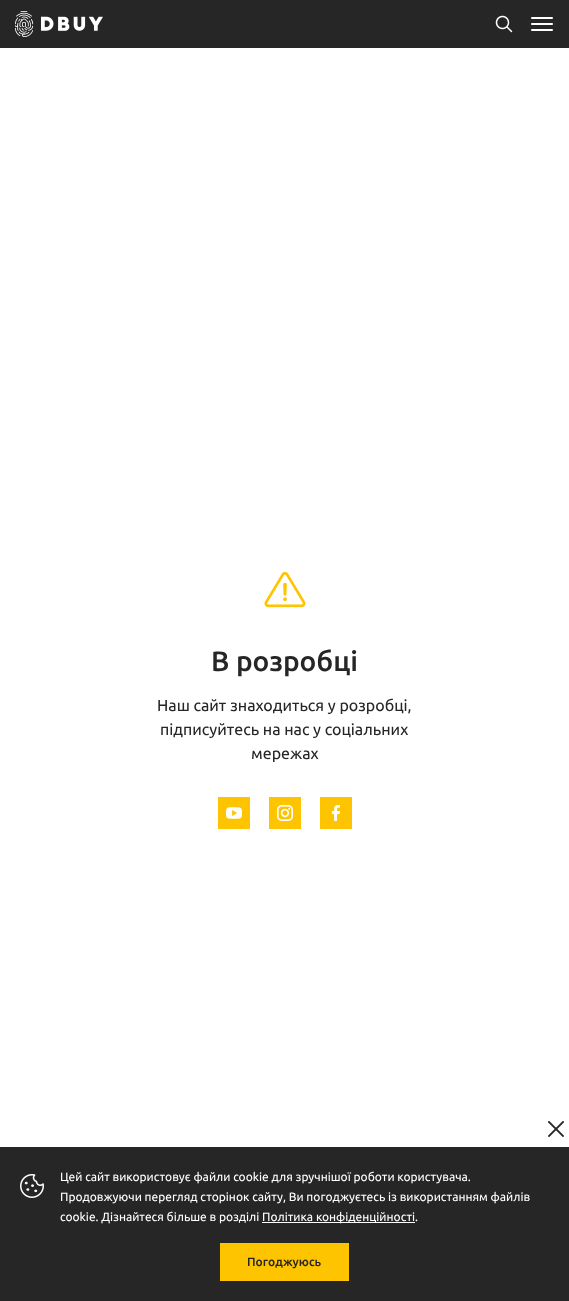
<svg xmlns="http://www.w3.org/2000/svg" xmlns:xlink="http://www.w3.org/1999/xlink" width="569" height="1301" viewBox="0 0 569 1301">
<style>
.cls-1{font:500 28px Ubuntu;fill:#262626}
.cls-2{font:16px Ubuntu;fill:#262626}
.cls-3{font:12px Ubuntu;fill:#ffffff}
.cls-4{font:500 12px Ubuntu;fill:#262626}
</style>
<rect width="100%" height="100%" fill="#ffffff"/>
<rect fill="#262626" x="0" y="0" width="569" height="48"/>
<image xlink:href="image0.png" x="15" y="11" width="88" height="26"/>
<image xlink:href="image1.png" x="495" y="15" width="18" height="18"/>
<image xlink:href="image2.png" x="531" y="17" width="22" height="14"/>
<image xlink:href="image3.png" x="264" y="571" width="42" height="37"/>
<image xlink:href="image4.png" x="218" y="797" width="32" height="32"/>
<image xlink:href="image5.png" x="269" y="797" width="32" height="32"/>
<image xlink:href="image6.png" x="320" y="797" width="32" height="32"/>
<rect fill="#262626" x="0" y="1147" width="569" height="154"/>
<image xlink:href="image7.png" x="548" y="1121" width="16" height="16"/>
<image xlink:href="image8.png" x="20" y="1174" width="24" height="24"/>
<rect fill="#ffffff" x="262" y="1222" width="153" height="1"/>
<rect fill="#ffc400" x="220" y="1243" width="129" height="38"/>
<text class="cls-1" x="211" y="671">В розробці</text>
<text class="cls-2" x="157" y="711">Наш сайт знаходиться у розробці,</text>
<text class="cls-2" x="160" y="735">підписуйтесь на нас у соціальних</text>
<text class="cls-2" x="251" y="759">мережах</text>
<text class="cls-3"><tspan x="60" y="1181">Цей сайт використовує файли cookie для зручнішої роботи користувача.</tspan><tspan x="60" y="1201">Продовжуючи перегляд сторінок сайту, Ви погоджуєтесь із використанням файлів</tspan><tspan x="60" y="1221">cookie. Дізнайтеся більше в розділі</tspan></text>
<text class="cls-3" x="262" y="1221">Політика конфіденційності.</text>
<text class="cls-4" x="247" y="1266">Погоджуюсь</text>
</svg>
